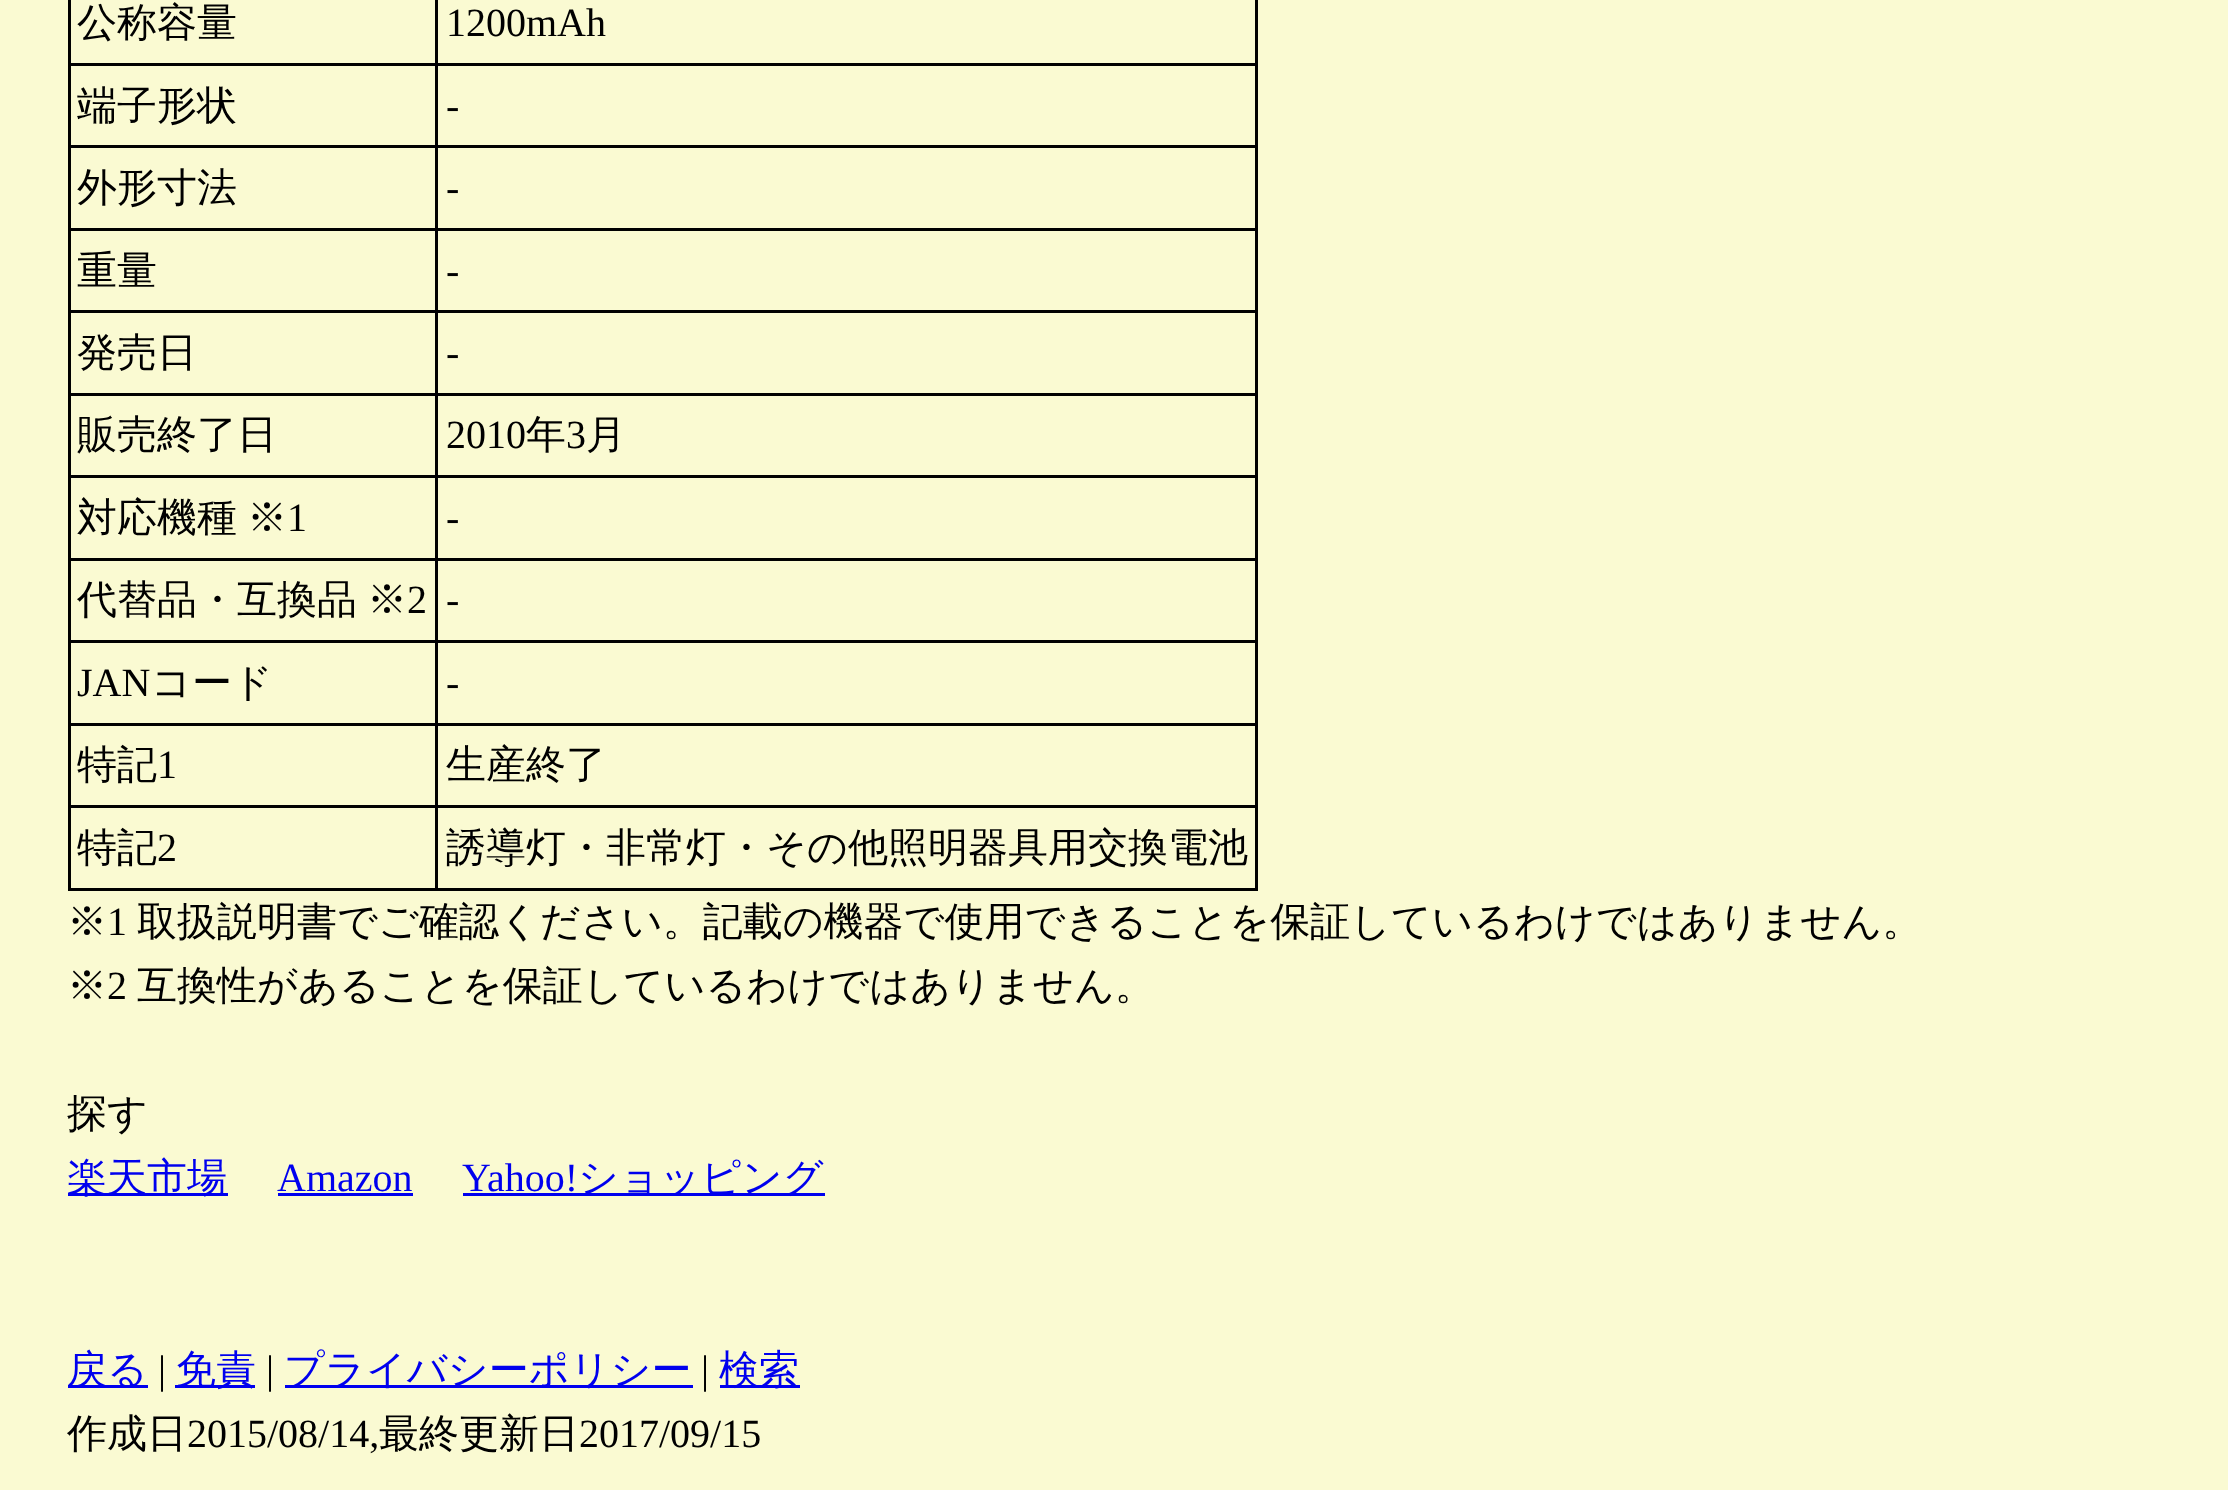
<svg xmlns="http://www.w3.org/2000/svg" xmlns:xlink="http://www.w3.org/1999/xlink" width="2228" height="1490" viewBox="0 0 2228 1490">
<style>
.cls-1{font:500 40px WenQuanYi Zen Hei;fill:#000000}
.cls-2{font:40px Liberation Serif;fill:#000000}
.cls-3{font:500 40px WenQuanYi Zen Hei;fill:#0000ee}
.cls-4{font:40px Liberation Serif;fill:#0000ee}
</style>
<rect width="100%" height="100%" fill="#fafad2"/>
<rect fill="#000000" x="1255" y="0" width="3" height="890"/>
<rect fill="#000000" x="68" y="888" width="1190" height="3"/>
<rect fill="#000000" x="68" y="0" width="3" height="890"/>
<rect fill="#000000" x="435" y="63" width="823" height="3"/>
<rect fill="#000000" x="435" y="145" width="823" height="3"/>
<rect fill="#000000" x="435" y="228" width="823" height="3"/>
<rect fill="#000000" x="435" y="310" width="823" height="3"/>
<rect fill="#000000" x="435" y="393" width="823" height="3"/>
<rect fill="#000000" x="435" y="475" width="823" height="3"/>
<rect fill="#000000" x="435" y="558" width="823" height="3"/>
<rect fill="#000000" x="435" y="640" width="823" height="3"/>
<rect fill="#000000" x="435" y="723" width="823" height="3"/>
<rect fill="#000000" x="435" y="805" width="823" height="3"/>
<rect fill="#000000" x="435" y="805" width="3" height="85"/>
<rect fill="#000000" x="68" y="805" width="370" height="3"/>
<rect fill="#000000" x="435" y="723" width="3" height="85"/>
<rect fill="#000000" x="68" y="723" width="370" height="3"/>
<rect fill="#000000" x="435" y="640" width="3" height="85"/>
<rect fill="#000000" x="68" y="640" width="370" height="3"/>
<rect fill="#000000" x="435" y="558" width="3" height="85"/>
<rect fill="#000000" x="68" y="558" width="370" height="3"/>
<rect fill="#000000" x="435" y="475" width="3" height="85"/>
<rect fill="#000000" x="68" y="475" width="370" height="3"/>
<rect fill="#000000" x="435" y="393" width="3" height="85"/>
<rect fill="#000000" x="68" y="393" width="370" height="3"/>
<rect fill="#000000" x="435" y="310" width="3" height="85"/>
<rect fill="#000000" x="68" y="310" width="370" height="3"/>
<rect fill="#000000" x="435" y="228" width="3" height="85"/>
<rect fill="#000000" x="68" y="228" width="370" height="3"/>
<rect fill="#000000" x="435" y="145" width="3" height="85"/>
<rect fill="#000000" x="68" y="145" width="370" height="3"/>
<rect fill="#000000" x="435" y="63" width="3" height="85"/>
<rect fill="#000000" x="68" y="63" width="370" height="3"/>
<rect fill="#000000" x="435" y="0" width="3" height="65"/>
<rect fill="#0000ee" x="68" y="1193" width="160" height="3"/>
<rect fill="#0000ee" x="278" y="1193" width="135" height="3"/>
<rect fill="#0000ee" x="463" y="1193" width="362" height="3"/>
<rect fill="#0000ee" x="68" y="1385" width="80" height="3"/>
<rect fill="#0000ee" x="175" y="1385" width="80" height="3"/>
<rect fill="#0000ee" x="285" y="1385" width="408" height="3"/>
<rect fill="#0000ee" x="720" y="1385" width="80" height="3"/>
<text class="cls-1" x="77" y="36">公称容量</text>
<text class="cls-2" x="446" y="36">1200mAh</text>
<text class="cls-1" x="77" y="119">端子形状</text>
<text class="cls-2" x="446" y="119">-</text>
<text class="cls-1" x="77" y="201">外形寸法</text>
<text class="cls-2" x="446" y="201">-</text>
<text class="cls-1" x="77" y="284">重量</text>
<text class="cls-2" x="446" y="284">-</text>
<text class="cls-1" x="77" y="366">発売日</text>
<text class="cls-2" x="446" y="366">-</text>
<text class="cls-1" x="77" y="448">販売終了日</text>
<text class="cls-2" x="446" y="448">2010</text>
<text class="cls-1" x="526" y="448">年</text>
<text class="cls-2" x="566" y="448">3</text>
<text class="cls-1" x="586" y="448">月</text>
<text class="cls-1" x="77" y="531" word-spacing="-2">対応機種 ※</text>
<text class="cls-2" x="287" y="531">1</text>
<text class="cls-2" x="446" y="531">-</text>
<text class="cls-1" x="77" y="613" word-spacing="-2">代替品・互換品 ※</text>
<text class="cls-2" x="407" y="613">2</text>
<text class="cls-2" x="446" y="613">-</text>
<text class="cls-2" x="77" y="696">JAN</text>
<text class="cls-1" x="151" y="696">コード</text>
<text class="cls-2" x="446" y="696">-</text>
<text class="cls-1" x="77" y="778">特記</text>
<text class="cls-2" x="157" y="778">1</text>
<text class="cls-1" x="446" y="778">生産終了</text>
<text class="cls-1" x="77" y="861">特記</text>
<text class="cls-2" x="157" y="861">2</text>
<text class="cls-1" x="446" y="861">誘導灯・非常灯・その他照明器具用交換電池</text>
<text class="cls-1" x="67" y="935">※</text>
<text class="cls-2" x="107" y="935">1</text>
<text class="cls-1" x="137" y="935">取扱説明書でご確認ください。記載の機器で使用できることを保証しているわけではありません。</text>
<text class="cls-1" x="67" y="999">※</text>
<text class="cls-2" x="107" y="999">2</text>
<text class="cls-1" x="137" y="999">互換性があることを保証しているわけではありません。</text>
<text class="cls-1" x="67" y="1127">探す</text>
<text class="cls-3" x="67" y="1191">楽天市場</text>
<text class="cls-4" x="277" y="1191">Amazon</text>
<text class="cls-4" x="462" y="1191">Yahoo!</text>
<text class="cls-3" x="578" y="1191">ショッピング</text>
<text class="cls-3" x="67" y="1383">戻る</text>
<text class="cls-2" x="158" y="1383">|</text>
<text class="cls-3" x="176" y="1383">免責</text>
<text class="cls-2" x="266" y="1383">|</text>
<text class="cls-3" x="284" y="1383">プライバシーポリシー</text>
<text class="cls-2" x="701" y="1383">|</text>
<text class="cls-3" x="719" y="1383">検索</text>
<text class="cls-1" x="67" y="1447">作成日</text>
<text class="cls-2" x="187" y="1447">2015/08/14,</text>
<text class="cls-1" x="379" y="1447">最終更新日</text>
<text class="cls-2" x="579" y="1447">2017/09/15</text>
</svg>
